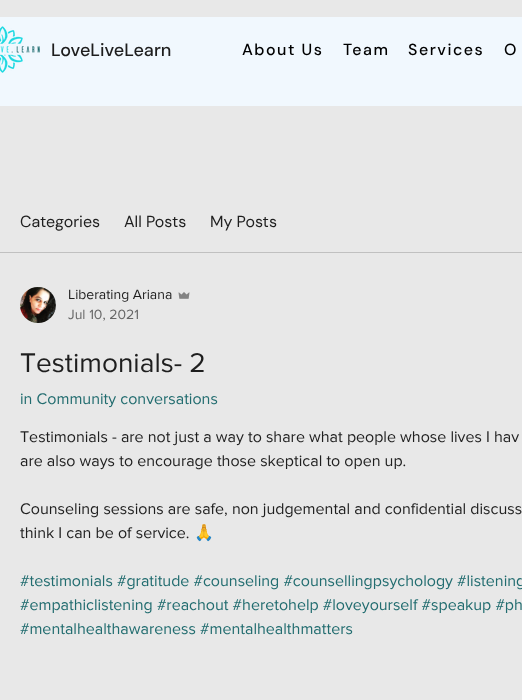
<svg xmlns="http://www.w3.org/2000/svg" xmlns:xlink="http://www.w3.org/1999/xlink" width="522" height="700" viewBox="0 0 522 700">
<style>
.cls-1{font:500 18px DM Sans;fill:#1e1e1e}
.cls-2{font:500 16px DM Sans;letter-spacing:1.5px;fill:#000000}
.cls-3{font:16px DM Sans;fill:#1e1e1e}
.cls-4{font:14px 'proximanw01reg';fill:#1e1e1e}
.cls-5{font:14px 'proximanw01reg';fill:#676767}
.cls-6{font:28px 'proximanw01reg';fill:#1e1e1e}
.cls-7{font:16px 'proximanw01reg';fill:#216c6f}
.cls-8{font:16px 'proximanw01reg';fill:#1e1e1e}
.cls-9{font:16px Noto Color Emoji;fill:#1e1e1e}
</style>
<rect width="100%" height="100%" fill="#e8e8e8"/>
<rect fill="#f1f8fe" x="0" y="17" width="522" height="89"/>
<image xlink:href="image0.png" x="0" y="26" width="40" height="47"/>
<rect fill="#c0c0c0" x="0" y="252" width="522" height="1"/>
<image xlink:href="image1.png" x="20" y="287" width="36" height="36"/>
<image xlink:href="image2.png" x="178" y="292" width="12" height="7"/>
<text class="cls-1" x="51" y="56">LoveLiveLearn</text>
<text class="cls-2" x="242" y="55">About Us</text>
<text class="cls-2" x="343" y="55">Team</text>
<text class="cls-2" x="408" y="55">Services</text>
<text class="cls-2" x="504" y="55">O</text>
<text class="cls-3" x="20" y="227">Categories</text>
<text class="cls-3" x="124" y="227">All Posts</text>
<text class="cls-3" x="210" y="227">My Posts</text>
<text class="cls-4" x="68" y="299">Liberating Ariana</text>
<text class="cls-5" x="68" y="319">Jul 10, 2021</text>
<text class="cls-6" x="20" y="372">Testimonials- 2</text>
<text class="cls-7" x="20" y="404">in Community conversations</text>
<text class="cls-8"><tspan x="20" y="442">Testimonials - are not just a way to share what people whose lives I hav</tspan><tspan x="20" y="466">are also ways to encourage those skeptical to open up.</tspan></text>
<text class="cls-8"><tspan x="20" y="514">Counseling sessions are safe, non judgemental and confidential discuss</tspan><tspan x="20" y="538">think I can be of service.</tspan></text>
<text class="cls-9" x="194" y="538">🙏</text>
<text class="cls-7"><tspan x="20" y="586">#testimonials #gratitude #counseling #counsellingpsychology #listening</tspan><tspan x="20" y="610">#empathiclistening #reachout #heretohelp #loveyourself #speakup #ph</tspan><tspan x="20" y="634">#mentalhealthawareness #mentalhealthmatters</tspan></text>
</svg>
